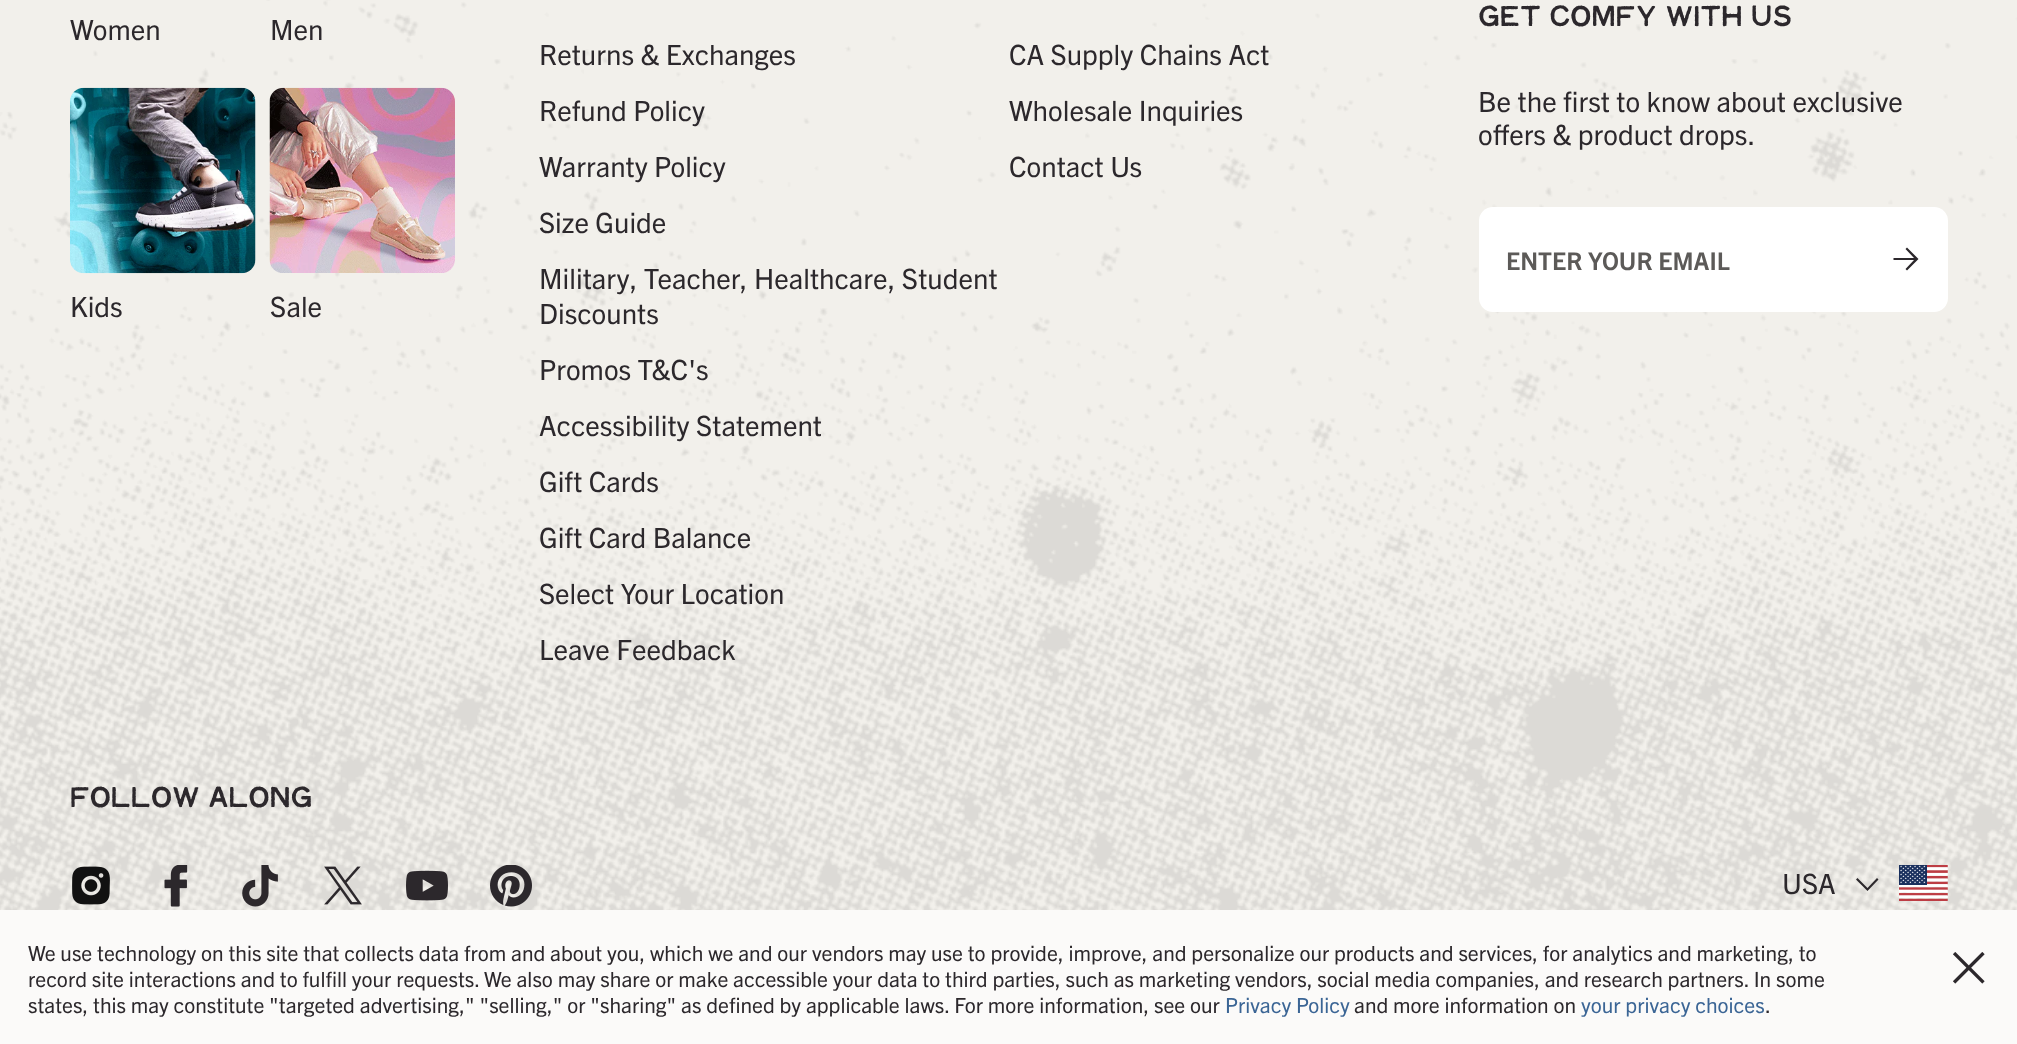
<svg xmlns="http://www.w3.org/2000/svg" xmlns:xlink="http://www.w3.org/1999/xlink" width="2017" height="1044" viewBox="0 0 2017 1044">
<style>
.cls-1{font:28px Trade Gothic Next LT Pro;fill:#2c282c}
.cls-2{font:42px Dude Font;fill:#2c282c}
.cls-3{font:bold 24.5px Trade Gothic Next LT Pro;fill:#5c5a58}
.cls-4{font:21px Trade Gothic Next LT Pro;fill:#2c282c}
.cls-5{font:21px Trade Gothic Next LT Pro;fill:#3b6595}
</style>
<rect width="100%" height="100%" fill="#f2f0eb"/>
<image xlink:href="image0.png" x="0" y="0" width="2017" height="910"/>
<image xlink:href="image1.png" x="70" y="87" width="186" height="187"/>
<image xlink:href="image2.png" x="269" y="87" width="186" height="186"/>
<rect fill="#ffffff" x="1479" y="207" width="469" height="105" rx="14"/>
<path fill="#2c282c" fill-rule="evenodd" d="M1918.5 259L1907 247.5L1905.5 249L1914 258H1893.5V260H1914L1905.5 269L1907 270.5Z"/>
<image xlink:href="image3.png" x="72" y="866" width="38" height="39"/>
<image xlink:href="image4.png" x="164" y="865" width="24" height="42"/>
<image xlink:href="image5.png" x="242" y="865" width="36" height="42"/>
<image xlink:href="image6.png" x="324" y="866" width="38" height="39"/>
<image xlink:href="image7.png" x="406" y="870" width="42" height="31"/>
<image xlink:href="image8.png" x="490" y="865" width="42" height="42"/>
<path fill="#2c282c" fill-rule="evenodd" d="M1857.5 878L1867.5 888L1877 878L1878.5 879.5L1867.5 891L1856 879.5Z"/>
<image xlink:href="image9.png" x="1899" y="865" width="49" height="36"/>
<rect fill="#fbfaf9" x="0" y="910" width="2017" height="134"/>
<image xlink:href="image10.png" x="1953" y="952" width="32" height="32"/>
<text class="cls-1" x="70" y="40">Women</text>
<text class="cls-1" x="270" y="40">Men</text>
<text class="cls-1" x="70" y="317">Kids</text>
<text class="cls-1" x="270" y="317">Sale</text>
<text class="cls-1" x="539" y="65">Returns &amp; Exchanges</text>
<text class="cls-1" x="539" y="121">Refund Policy</text>
<text class="cls-1" x="539" y="177">Warranty Policy</text>
<text class="cls-1" x="539" y="233">Size Guide</text>
<text class="cls-1"><tspan x="539" y="289">Military, Teacher, Healthcare, Student</tspan><tspan x="539" y="324">Discounts</tspan></text>
<text class="cls-1" x="539" y="380">Promos T&amp;C's</text>
<text class="cls-1" x="539" y="436">Accessibility Statement</text>
<text class="cls-1" x="539" y="492">Gift Cards</text>
<text class="cls-1" x="539" y="548">Gift Card Balance</text>
<text class="cls-1" x="539" y="604">Select Your Location</text>
<text class="cls-1" x="539" y="660">Leave Feedback</text>
<text class="cls-1" x="1009" y="65">CA Supply Chains Act</text>
<text class="cls-1" x="1009" y="121">Wholesale Inquiries</text>
<text class="cls-1" x="1009" y="177">Contact Us</text>
<text class="cls-2" x="1478" y="26">GET COMFY WITH US</text>
<text class="cls-1"><tspan x="1478" y="112">Be the first to know about exclusive</tspan><tspan x="1478" y="145">offers &amp; product drops.</tspan></text>
<text class="cls-3" x="1506" y="270">ENTER YOUR EMAIL</text>
<text class="cls-2" x="70" y="807">FOLLOW ALONG</text>
<text class="cls-1" x="1782" y="894">USA</text>
<text class="cls-4"><tspan x="28" y="961">We use technology on this site that collects data from and about you, which we and our vendors may use to provide, improve, and personalize our products and services, for analytics and marketing, to</tspan><tspan x="28" y="987">record site interactions and to fulfill your requests. We also may share or make accessible your data to third parties, such as marketing vendors, social media companies, and research partners. In some</tspan><tspan x="28" y="1013">states, this may constitute "targeted advertising," "selling," or "sharing" as defined by applicable laws. For more information, see our</tspan></text>
<text class="cls-5" x="1225" y="1013">Privacy Policy</text>
<text class="cls-4" x="1354" y="1013">and more information on</text>
<text class="cls-5" x="1581" y="1013">your privacy choices</text>
<text class="cls-4" x="1765" y="1013">.</text>
</svg>
